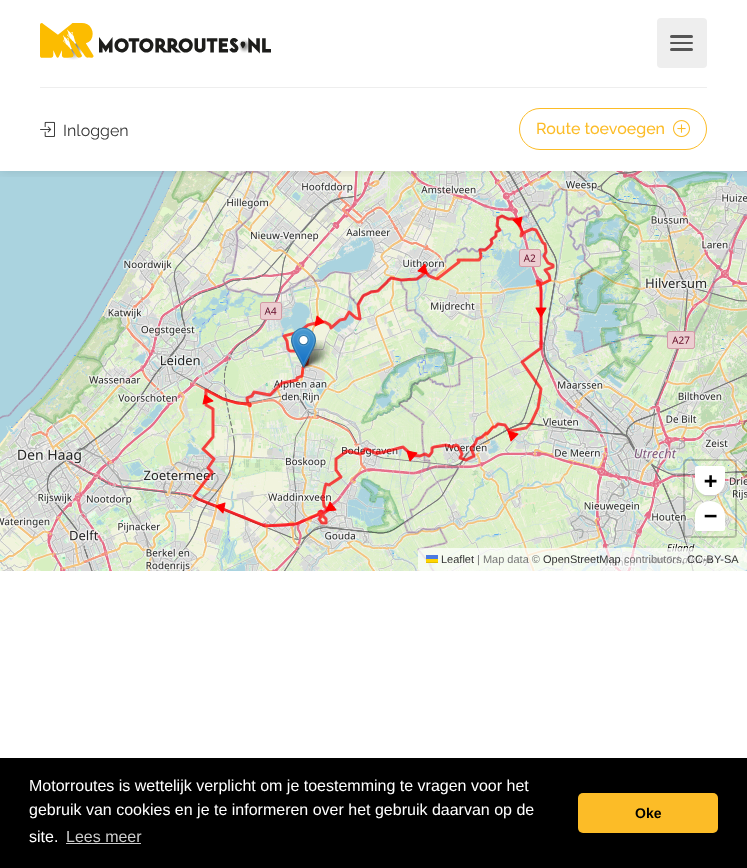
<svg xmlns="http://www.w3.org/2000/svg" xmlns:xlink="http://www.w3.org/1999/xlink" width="747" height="868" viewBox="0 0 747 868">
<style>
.cls-1{font:16px Raleway;fill:#333333}
.cls-2{font:500 16px Raleway;fill:#fcbc27}
.cls-3{font:bold 22px DejaVu Sans Mono;fill:#000000}
.cls-4{font:11px Liberation Sans;fill:#333333}
.cls-5{font:11px Liberation Sans;fill:#777777}
.cls-6{font:16px Liberation Sans;fill:#ffffff}
.cls-7{font:16px Liberation Sans;fill:#cccccc}
.cls-8{font:bold 14px Liberation Sans;fill:#000000}
</style>
<defs>
<clipPath id="clip1"><rect x="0" y="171" width="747" height="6"/></clipPath>
</defs>
<rect width="100%" height="100%" fill="#ffffff"/>
<image xlink:href="image3.png" x="0" y="171" width="238" height="60"/>
<image xlink:href="image4.png" x="238" y="171" width="256" height="60"/>
<image xlink:href="image5.png" x="494" y="171" width="253" height="60"/>
<g clip-path="url(#clip1)">
<rect fill="#000000" fill-opacity="0.12" filter="blur(6px)" x="0" y="0" width="747" height="171"/>
</g>
<image xlink:href="image0.png" x="40" y="23" width="231" height="37"/>
<rect fill="#eeeeee" x="657" y="18" width="50" height="50" rx="4"/>
<rect fill="#555555" x="670" y="48" width="23" height="3" rx="1.5"/>
<rect fill="#555555" x="670" y="35" width="23" height="3" rx="1.5"/>
<rect fill="#555555" x="670" y="42" width="23" height="2" rx="1"/>
<rect fill="#eeeeee" x="40" y="87" width="667" height="1"/>
<image xlink:href="image1.png" x="40" y="121" width="15" height="16"/>
<rect fill="none" stroke="#fcbc27" x="519.5" y="108.5" width="187" height="41" rx="20.5"/>
<image xlink:href="image2.png" x="673" y="120" width="17" height="18"/>
<image xlink:href="image6.png" x="0" y="231" width="238" height="256"/>
<image xlink:href="image7.png" x="238" y="231" width="256" height="256"/>
<image xlink:href="image8.png" x="494" y="231" width="253" height="256"/>
<image xlink:href="image9.png" x="0" y="487" width="238" height="84"/>
<image xlink:href="image10.png" x="238" y="487" width="256" height="84"/>
<image xlink:href="image11.png" x="494" y="487" width="253" height="84"/>
<image xlink:href="image12.png" x="192" y="214" width="363" height="314"/>
<image xlink:href="image15.png" x="301" y="340" width="29" height="28"/>
<image xlink:href="image16.png" x="301" y="340" width="29" height="28"/>
<image xlink:href="image13.png" x="291" y="327" width="25" height="41"/>
<image xlink:href="image14.png" x="291" y="327" width="25" height="41"/>
<rect fill="none" stroke="#000000" stroke-opacity="0.2" stroke-width="2" x="684" y="460" width="52" height="77" rx="3"/>
<rect fill="#000000" fill-opacity="0.2" filter="blur(2px)" x="696" y="468" width="28" height="28" rx="14"/>
<path fill="#ffffff" d="M697 466H723C724 466 725 467 725 468V481C725 489.5 718.5 496 710 496C701.5 496 695 489.5 695 481V468C695 467 696 466 697 466Z"/>
<rect fill="#cccccc" x="703" y="495" width="15" height="1"/>
<rect fill="#000000" fill-opacity="0.2" filter="blur(2px)" x="696" y="503" width="28" height="28" rx="14"/>
<path fill="#ffffff" d="M710 501C718.5 501 725 507.5 725 516V529C725 530 724 531 723 531H697C696 531 695 530 695 529V516C695 507.5 701.5 501 710 501Z"/>
<rect fill="#ffffff" fill-opacity="0.7" x="418" y="548" width="329" height="23" rx="3"/>
<rect fill="#4c7be1" x="426" y="555" width="12" height="4"/>
<rect fill="#ffd500" x="426" y="559" width="12" height="3"/>
<rect fill="#e0bc00" x="426" y="562" width="12" height="1"/>
<rect fill="#000000" x="0" y="758" width="747" height="110"/>
<rect fill="#cccccc" x="66" y="843" width="75" height="1"/>
<rect fill="#fcbc27" x="578" y="793" width="140" height="40" rx="5"/>
<text class="cls-1" x="63" y="136">Inloggen</text>
<text class="cls-2" x="536" y="134">Route toevoegen</text>
<text class="cls-3"><tspan x="704" y="488">+</tspan><tspan x="704" y="523">−</tspan></text>
<text class="cls-4" x="441" y="563">Leaflet</text>
<text class="cls-5" x="477" y="563">| Map data ©</text>
<text class="cls-4" x="543" y="563">OpenStreetMap</text>
<text class="cls-5" x="624" y="563">contributors,</text>
<text class="cls-4" x="687" y="563">CC-BY-SA</text>
<text class="cls-6"><tspan x="29" y="791">Motorroutes is wettelijk verplicht om je toestemming te vragen voor het</tspan><tspan x="29" y="815">gebruik van cookies en je te informeren over het gebruik daarvan op de</tspan><tspan x="29" y="842">site.</tspan></text>
<text class="cls-7" x="66" y="842">Lees meer</text>
<text class="cls-8" x="635" y="818">Oke</text>
</svg>
